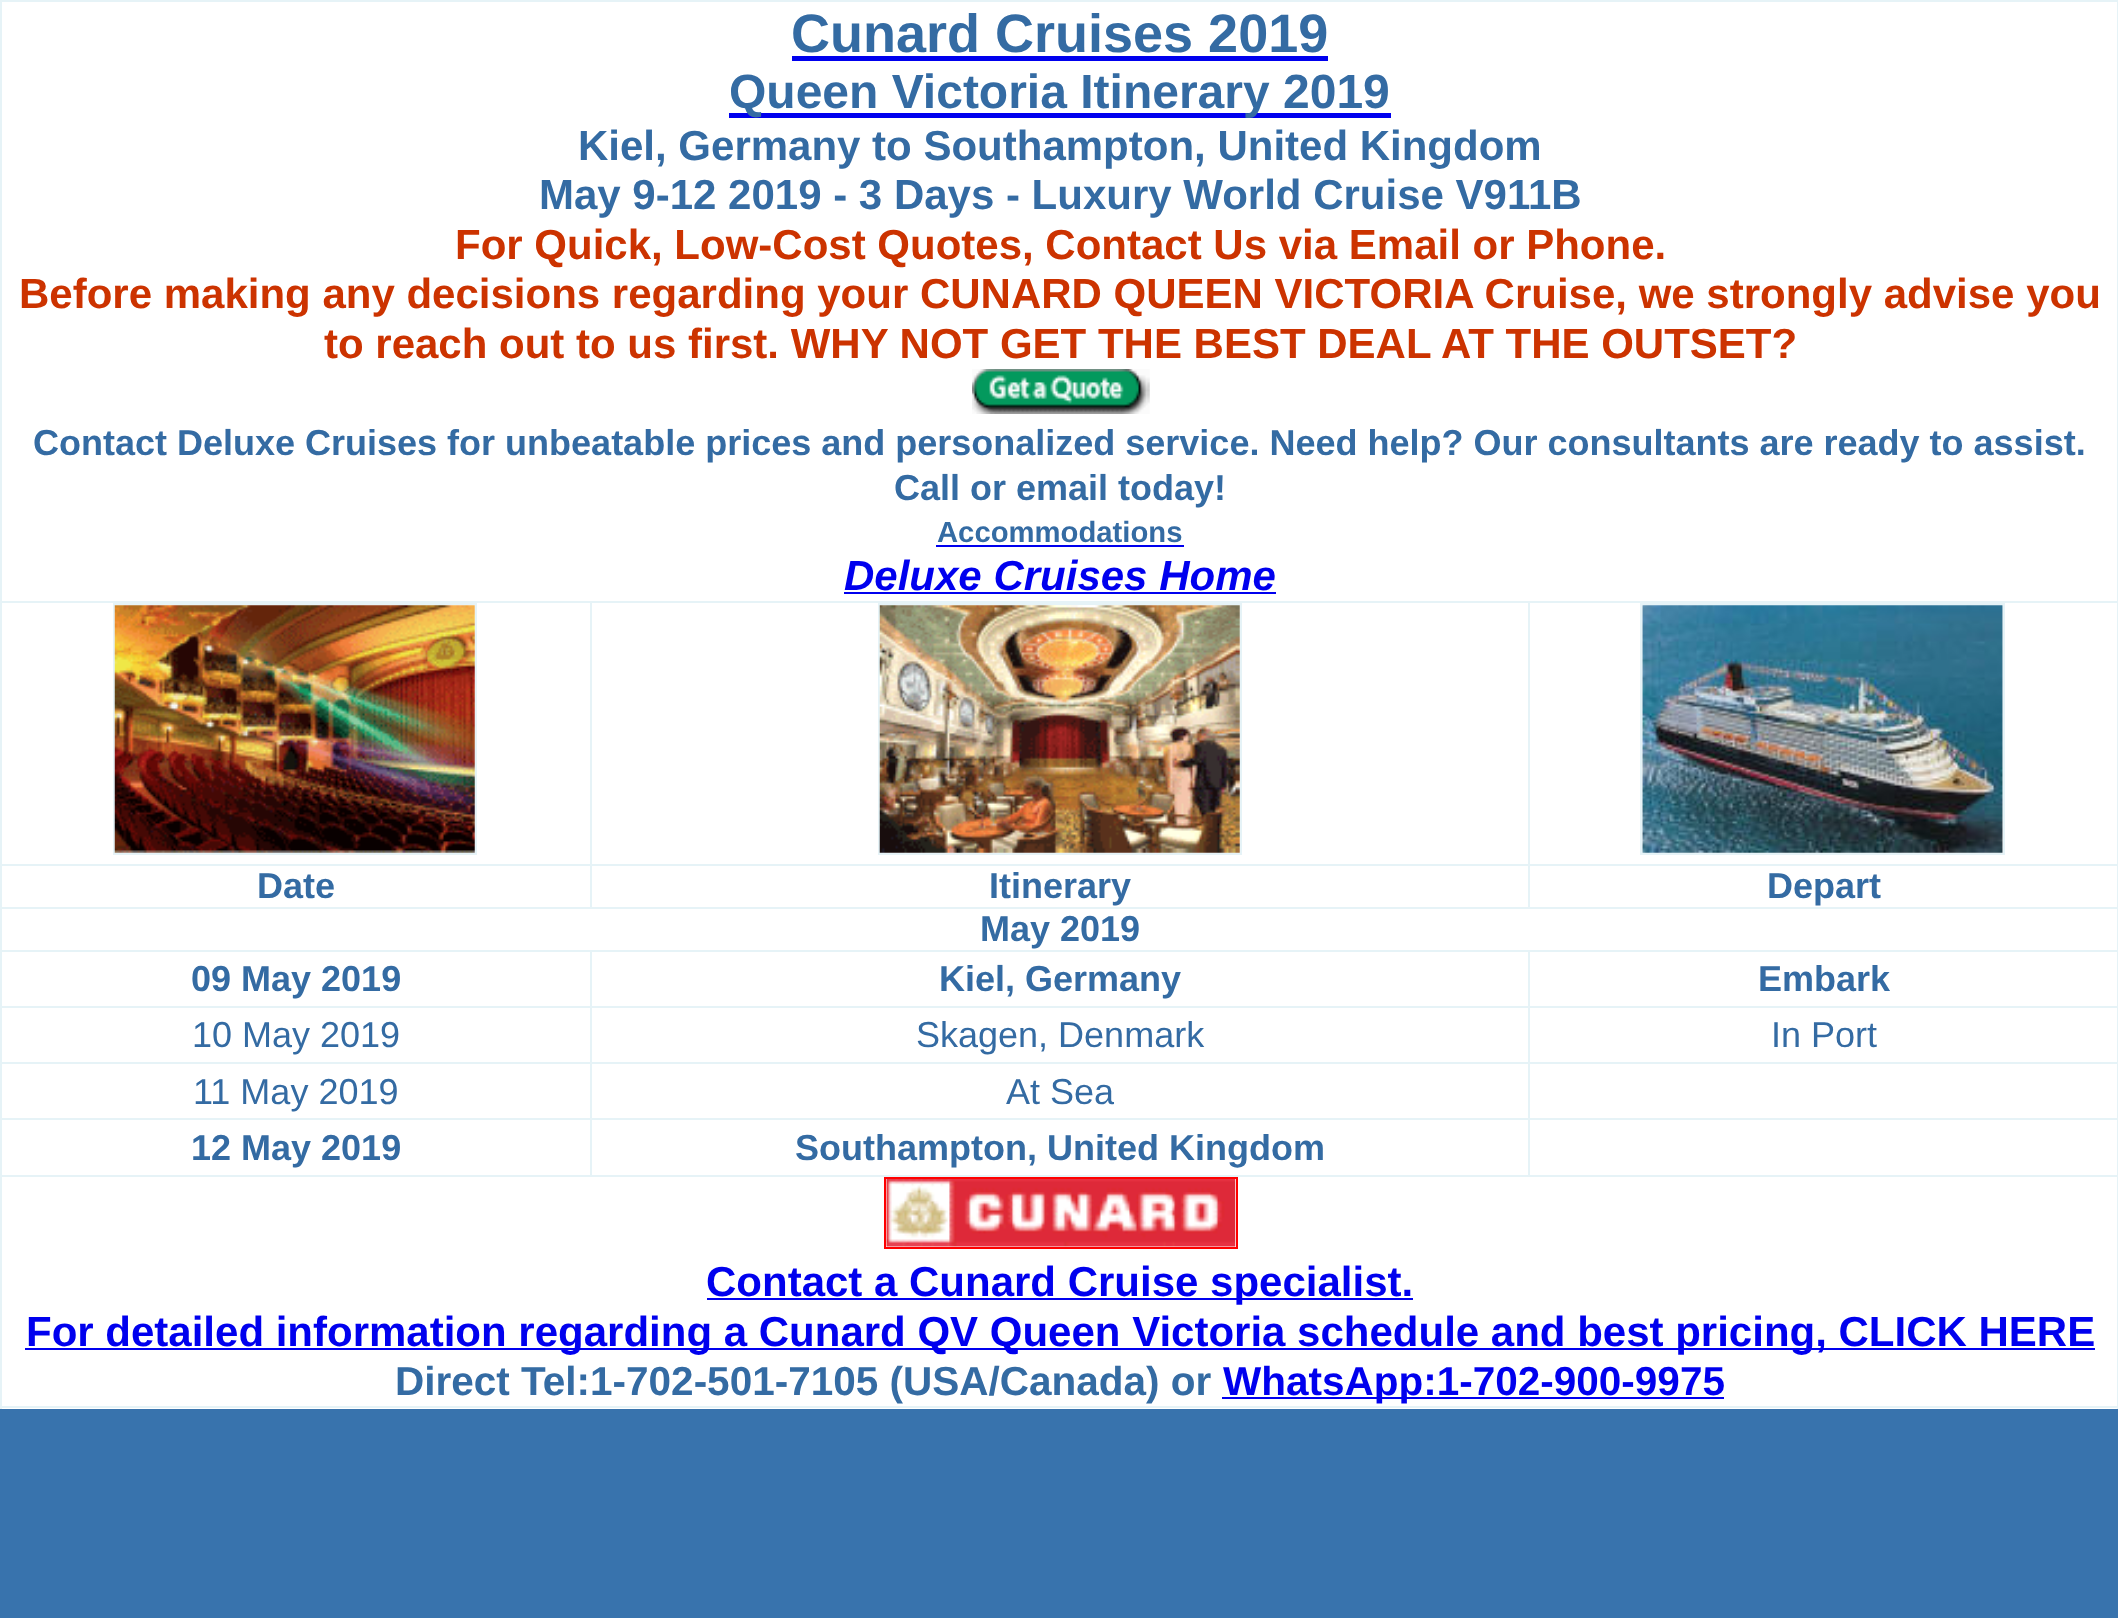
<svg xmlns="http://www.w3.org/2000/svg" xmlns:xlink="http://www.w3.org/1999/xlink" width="2118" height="1618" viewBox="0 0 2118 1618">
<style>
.cls-1{font:bold 54px Liberation Sans;fill:#346ba3}
.cls-2{font:bold 48px Liberation Sans;fill:#346ba3}
.cls-3{font:bold 42px Liberation Sans;fill:#346ba3}
.cls-4{font:bold 42px Liberation Sans;fill:#cc3300}
.cls-5{font:bold 36px Liberation Sans;fill:#346ba3}
.cls-6{font:bold 29.25px Liberation Sans;fill:#346ba3}
.cls-7{font:italic bold 42px Liberation Sans;fill:#0000ee}
.cls-8{font:36px Liberation Sans;fill:#346ba3}
.cls-9{font:bold 42px Liberation Sans;fill:#0000ee}
.cls-10{font:bold 40.5px Liberation Sans;fill:#346ba3}
.cls-11{font:bold 40.5px Liberation Sans;fill:#0000ee}
</style>
<rect width="100%" height="100%" fill="#3873ad"/>
<rect fill="#ffffff" x="2" y="2" width="2115" height="1407"/>
<rect fill="#e6f3f7" x="0" y="0" width="2118" height="2"/>
<rect fill="#e6f3f7" x="2117" y="0" width="1" height="1409"/>
<rect fill="#e6f3f7" x="0" y="1406" width="2118" height="2"/>
<rect fill="#e6f3f7" x="0" y="0" width="2" height="1409"/>
<rect fill="#0000ee" x="792" y="56" width="536" height="5"/>
<rect fill="#0000ee" x="729" y="113" width="662" height="5"/>
<image xlink:href="image0.png" x="972" y="369" width="178" height="45"/>
<rect fill="#0000ee" x="936" y="545" width="248" height="2"/>
<rect fill="#0000ee" x="844" y="592" width="432" height="2"/>
<rect fill="#e6f3f7" x="1528" y="601" width="590" height="2"/>
<rect fill="#e6f3f7" x="1528" y="864" width="590" height="2"/>
<rect fill="#e6f3f7" x="0" y="907" width="2118" height="2"/>
<rect fill="#e6f3f7" x="1528" y="864" width="2" height="45"/>
<rect fill="#e6f3f7" x="590" y="864" width="940" height="2"/>
<rect fill="#e6f3f7" x="1528" y="601" width="2" height="265"/>
<rect fill="#e6f3f7" x="590" y="601" width="940" height="2"/>
<rect fill="#e6f3f7" x="590" y="864" width="2" height="45"/>
<rect fill="#e6f3f7" x="0" y="864" width="592" height="2"/>
<rect fill="#e6f3f7" x="590" y="601" width="2" height="265"/>
<rect fill="#e6f3f7" x="0" y="601" width="592" height="2"/>
<rect fill="none" stroke="#e6f3f7" stroke-width="2" x="114" y="604" width="362" height="250"/>
<image xlink:href="image1.png" x="114" y="605" width="361" height="248"/>
<rect fill="none" stroke="#e6f3f7" stroke-width="2" x="879" y="604" width="362" height="250"/>
<image xlink:href="image2.png" x="879" y="605" width="361" height="248"/>
<rect fill="none" stroke="#e6f3f7" stroke-width="2" x="1641" y="604" width="363" height="250"/>
<image xlink:href="image3.png" x="1642" y="605" width="361" height="248"/>
<rect fill="#e6f3f7" x="1528" y="950" width="590" height="2"/>
<rect fill="#e6f3f7" x="1528" y="1006" width="590" height="2"/>
<rect fill="#e6f3f7" x="1528" y="1062" width="590" height="2"/>
<rect fill="#e6f3f7" x="1528" y="1118" width="590" height="2"/>
<rect fill="#e6f3f7" x="0" y="1175" width="2118" height="2"/>
<rect fill="#e6f3f7" x="1528" y="1118" width="2" height="59"/>
<rect fill="#e6f3f7" x="590" y="1118" width="940" height="2"/>
<rect fill="#e6f3f7" x="1528" y="1062" width="2" height="59"/>
<rect fill="#e6f3f7" x="590" y="1062" width="940" height="2"/>
<rect fill="#e6f3f7" x="1528" y="1006" width="2" height="58"/>
<rect fill="#e6f3f7" x="590" y="1006" width="940" height="2"/>
<rect fill="#e6f3f7" x="1528" y="950" width="2" height="58"/>
<rect fill="#e6f3f7" x="590" y="950" width="940" height="2"/>
<rect fill="#e6f3f7" x="590" y="1118" width="2" height="59"/>
<rect fill="#e6f3f7" x="0" y="1118" width="592" height="2"/>
<rect fill="#e6f3f7" x="590" y="1062" width="2" height="59"/>
<rect fill="#e6f3f7" x="0" y="1062" width="592" height="2"/>
<rect fill="#e6f3f7" x="590" y="1006" width="2" height="58"/>
<rect fill="#e6f3f7" x="0" y="1006" width="592" height="2"/>
<rect fill="#e6f3f7" x="590" y="950" width="2" height="58"/>
<rect fill="#e6f3f7" x="0" y="950" width="592" height="2"/>
<rect fill="none" stroke="#ff0000" stroke-width="2" x="885" y="1178" width="352" height="70"/>
<image xlink:href="image4.png" x="886" y="1179" width="350" height="68"/>
<rect fill="#0000ee" x="707" y="1298" width="706" height="2"/>
<rect fill="#0000ee" x="25" y="1348" width="2070" height="2"/>
<rect fill="#0000ee" x="1222" y="1397" width="502" height="2"/>
<text class="cls-1" x="791" y="52">Cunard Cruises 2019</text>
<text class="cls-2" x="729" y="108">Queen Victoria Itinerary 2019</text>
<text class="cls-3" x="578" y="160">Kiel, Germany to Southampton, United Kingdom</text>
<text class="cls-3" x="539" y="209">May 9-12 2019 - 3 Days - Luxury World Cruise V911B</text>
<text class="cls-4" x="455" y="259">For Quick, Low-Cost Quotes, Contact Us via Email or Phone.</text>
<text class="cls-4" x="19" y="308">Before making any decisions regarding your CUNARD QUEEN VICTORIA Cruise, we strongly advise you</text>
<text class="cls-4" x="324" y="358">to reach out to us first. WHY NOT GET THE BEST DEAL AT THE OUTSET?</text>
<text class="cls-5" x="33" y="455">Contact Deluxe Cruises for unbeatable prices and personalized service. Need help? Our consultants are ready to assist.</text>
<text class="cls-5" x="894" y="500">Call or email today!</text>
<text class="cls-6" x="937" y="542">Accommodations</text>
<text class="cls-7" x="844" y="590">Deluxe Cruises Home</text>
<text class="cls-5" x="257" y="898">Date</text>
<text class="cls-5" x="989" y="898">Itinerary</text>
<text class="cls-5" x="1767" y="898">Depart</text>
<text class="cls-5" x="980" y="941">May 2019</text>
<text class="cls-5" x="191" y="991">09 May 2019</text>
<text class="cls-5" x="939" y="991">Kiel, Germany</text>
<text class="cls-5" x="1758" y="991">Embark</text>
<text class="cls-8" x="192" y="1047">10 May 2019</text>
<text class="cls-8" x="916" y="1047">Skagen, Denmark</text>
<text class="cls-8" x="1771" y="1047">In Port</text>
<text class="cls-8" x="193" y="1104">11 May 2019</text>
<text class="cls-8" x="1006" y="1104">At Sea</text>
<text class="cls-5" x="191" y="1160">12 May 2019</text>
<text class="cls-5" x="795" y="1160">Southampton, United Kingdom</text>
<text class="cls-9" x="706" y="1296">Contact a Cunard Cruise specialist.</text>
<text class="cls-9" x="26" y="1346">For detailed information regarding a Cunard QV Queen Victoria schedule and best pricing, CLICK HERE</text>
<text class="cls-10" x="395" y="1395">Direct Tel:1-702-501-7105 (USA/Canada) or</text>
<text class="cls-11" x="1223" y="1395">WhatsApp:1-702-900-9975</text>
</svg>
